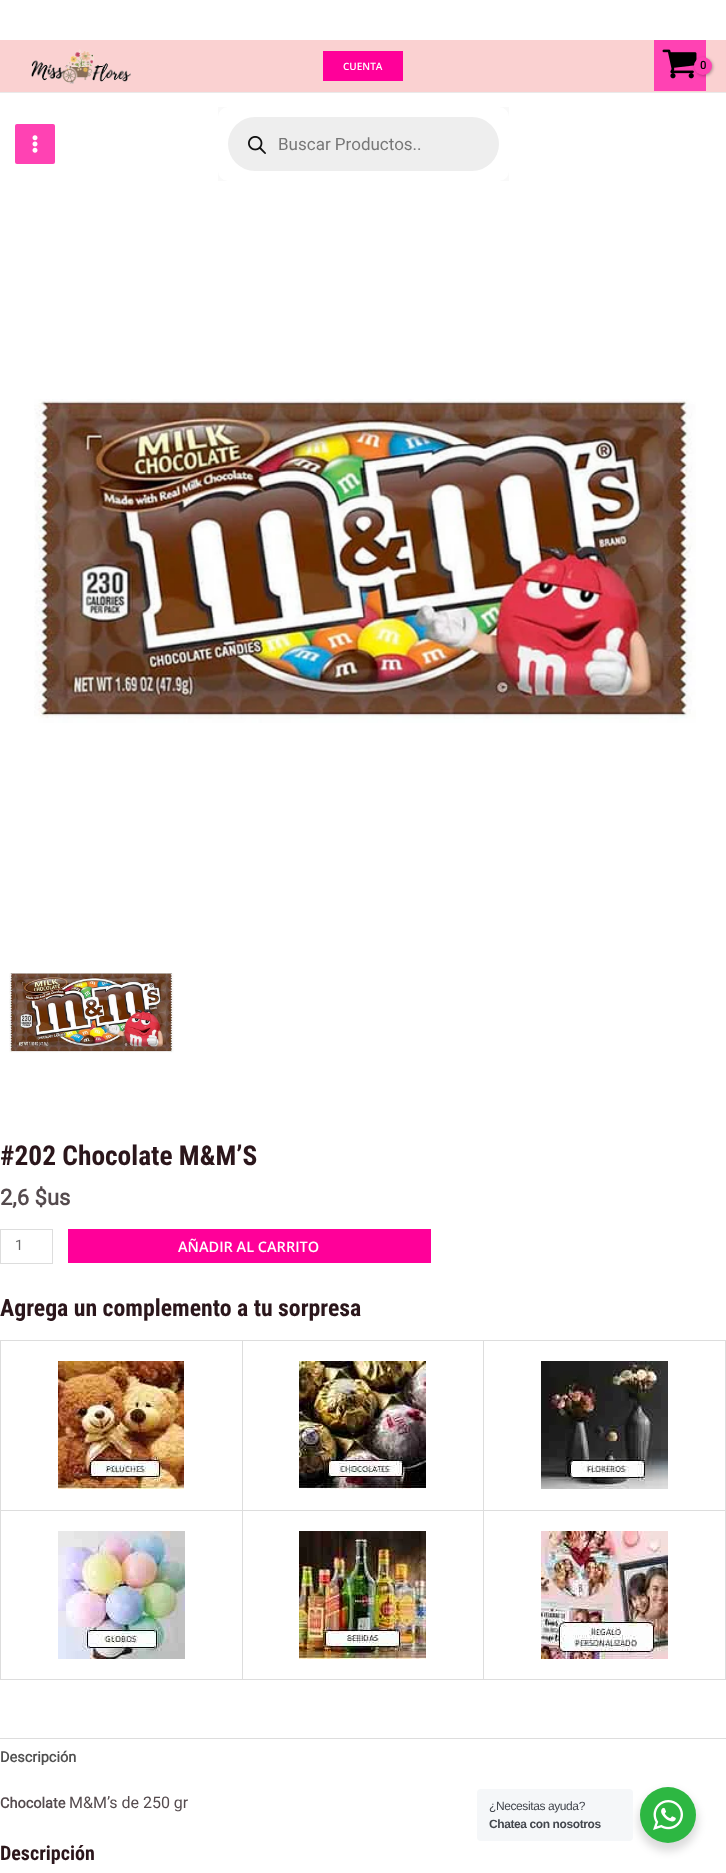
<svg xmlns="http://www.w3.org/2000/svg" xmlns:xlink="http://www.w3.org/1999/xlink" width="726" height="1873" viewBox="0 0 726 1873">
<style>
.cls-1{font:600 10px Open Sans;fill:#ffffff}
.cls-2{font:bold 11px Roboto;fill:#000000}
.cls-3{font:17px Roboto;fill:#777777}
.cls-4{font:bold 27.4px Roboto Condensed;fill:#2b161b}
.cls-5{font:bold 22px Roboto;fill:#554b4e}
.cls-6{font:14.5px Roboto;fill:#666666}
.cls-7{font:600 14.5px Open Sans;fill:#ffffff}
.cls-8{font:bold 23.75px Roboto Condensed;fill:#2b161b}
.cls-9{font:bold 14.5px Roboto;fill:#515151}
.cls-10{font:bold 14.5px Roboto;fill:#554b4e}
.cls-11{font:16px Roboto;fill:#554b4e}
.cls-12{font:bold 20px Roboto Condensed;fill:#2b161b}
.cls-13{font:12px Liberation Sans;letter-spacing:-0.4px;fill:#43474e}
.cls-14{font:bold 12px Liberation Sans;letter-spacing:-0.4px;fill:#43474e}
</style>
<rect width="100%" height="100%" fill="#ffffff"/>
<rect fill="#fad1d1" x="0" y="40" width="726" height="52"/>
<rect fill="#eaeaea" x="0" y="92" width="726" height="1"/>
<image xlink:href="image0.png" x="31" y="49" width="100" height="35"/>
<rect fill="#ff0099" x="323" y="51" width="80" height="30"/>
<rect fill="#ff42b3" x="654" y="40" width="52" height="51"/>
<image xlink:href="image1.png" x="662" y="49" width="35" height="30"/>
<rect fill="#000000" fill-opacity="0.3" filter="blur(1.5px)" x="695" y="58" width="18" height="18" rx="9"/>
<circle fill="#ff42b3" cx="703" cy="66" r="9"/>
<rect fill="#ff42b3" x="15" y="124" width="40" height="40" rx="2"/>
<image xlink:href="image2.png" x="32" y="135" width="6" height="18"/>
<rect fill="#f9f9f9" x="218" y="107" width="291" height="74"/>
<rect fill="#ffffff" x="218" y="107" width="291" height="74" rx="10"/>
<rect fill="#eeeeee" x="228" y="117" width="271" height="54" rx="27"/>
<image xlink:href="image3.png" x="248" y="136" width="18" height="18"/>
<image xlink:href="image4.png" x="34" y="399" width="662" height="324"/>
<image xlink:href="image5.png" x="9" y="973" width="165" height="80"/>
<rect fill="none" stroke="#dddddd" x="0.5" y="1229.5" width="52" height="34"/>
<rect fill="#ff0099" x="68" y="1229" width="363" height="34"/>
<rect fill="#dddddd" x="0" y="1340" width="726" height="1"/>
<rect fill="#dddddd" x="0" y="1340" width="1" height="340"/>
<rect fill="#dddddd" x="242" y="1341" width="1" height="339"/>
<rect fill="#dddddd" x="1" y="1510" width="242" height="1"/>
<image xlink:href="image6.png" x="58" y="1361" width="126" height="128"/>
<rect fill="#dddddd" x="483" y="1341" width="1" height="339"/>
<rect fill="#dddddd" x="243" y="1510" width="241" height="1"/>
<image xlink:href="image7.png" x="299" y="1361" width="127" height="128"/>
<rect fill="#dddddd" x="725" y="1341" width="1" height="339"/>
<rect fill="#dddddd" x="484" y="1510" width="242" height="1"/>
<image xlink:href="image8.png" x="541" y="1361" width="127" height="128"/>
<rect fill="#dddddd" x="1" y="1679" width="725" height="1"/>
<image xlink:href="image9.png" x="58" y="1531" width="127" height="128"/>
<image xlink:href="image10.png" x="299" y="1531" width="127" height="128"/>
<image xlink:href="image11.png" x="541" y="1531" width="127" height="128"/>
<rect fill="#dddddd" x="0" y="1738" width="726" height="1"/>
<rect fill="#000000" fill-opacity="0.14" filter="blur(4px)" x="638" y="1791" width="60" height="60" rx="30"/>
<rect fill="#f5f7f9" x="477" y="1789" width="156" height="52" rx="4"/>
<circle fill="#2db742" cx="668" cy="1815" r="28"/>
<image xlink:href="image12.png" x="653" y="1800" width="30" height="30"/>
<text class="cls-1" x="343" y="70">CUENTA</text>
<text class="cls-2" x="700" y="69">0</text>
<text class="cls-3" x="278" y="150">Buscar Productos..</text>
<text class="cls-4" x="0" y="1165">#202 Chocolate M&amp;M’S</text>
<text class="cls-5" x="0" y="1205">2,6 $us</text>
<text class="cls-6" x="15" y="1250">1</text>
<text class="cls-7" x="178" y="1252">AÑADIR AL CARRITO</text>
<text class="cls-8" x="0" y="1316">Agrega un complemento a tu sorpresa</text>
<text class="cls-9" x="0" y="1762">Descripción</text>
<text class="cls-10" x="0" y="1808">Chocolate</text>
<text class="cls-11" x="69" y="1808">M&amp;M’s de 250 gr</text>
<text class="cls-12" x="0" y="1860">Descripción</text>
<text class="cls-13" x="489" y="1810">¿Necesitas ayuda?</text>
<text class="cls-14" x="489" y="1828">Chatea con nosotros</text>
</svg>
